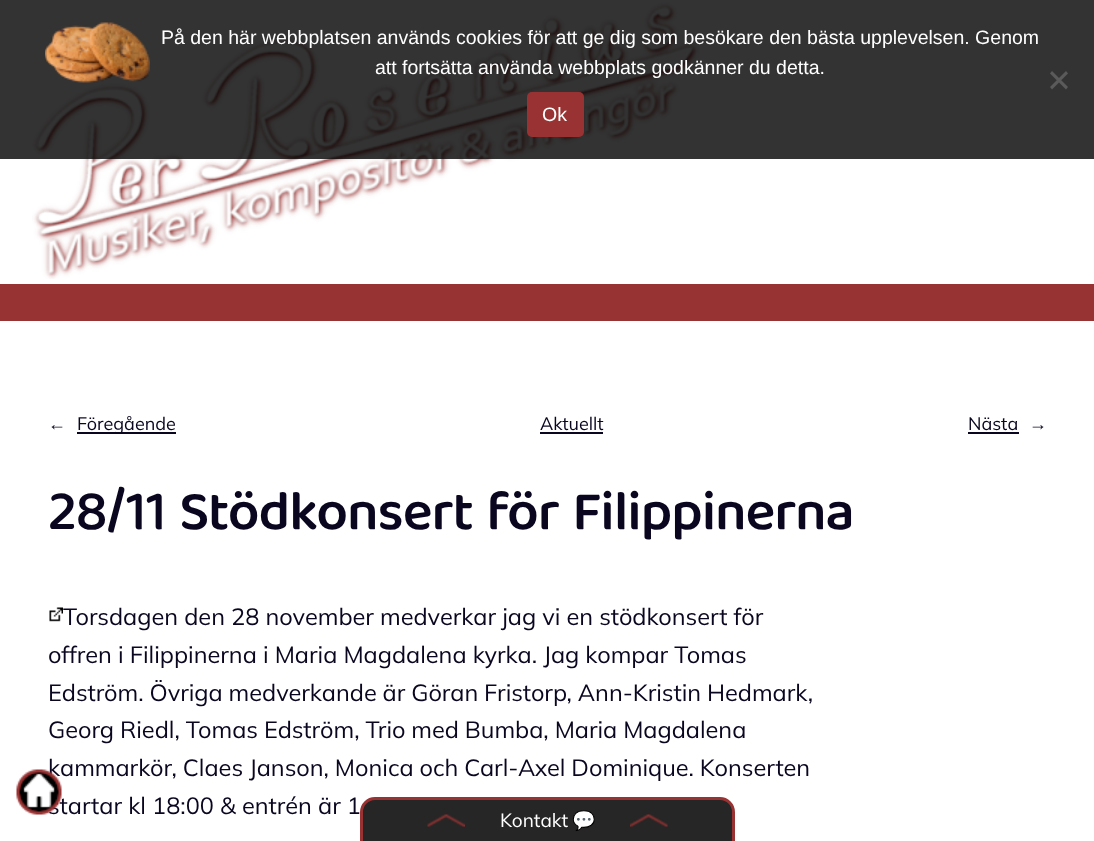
<svg xmlns="http://www.w3.org/2000/svg" xmlns:xlink="http://www.w3.org/1999/xlink" width="1094" height="841" viewBox="0 0 1094 841">
<style>
.cls-1{font:19.5px Liberation Sans;fill:#ffffff}
.cls-2{font:18px Liberation Sans;fill:#0b0620}
.cls-3{font:18px Mulish;fill:#0b0620}
.cls-4{font:600 56.25px 'Baloo Tamma 2';letter-spacing:-1.1px;fill:#0b0620}
.cls-5{font:23.55px Mulish;fill:#0b0620}
.cls-6{font:19px Mulish;fill:#ffffff}
.cls-7{font:19px Noto Color Emoji;fill:#ffffff}
</style>
<rect width="100%" height="100%" fill="#ffffff"/>
<image xlink:href="image2.png" x="32" y="2" width="668" height="277"/>
<rect fill="#000000" fill-opacity="0.8" x="0" y="0" width="1094" height="159"/>
<image xlink:href="image0.png" x="45" y="22" width="105" height="61"/>
<path fill="#5a5a5a" d="M1066 71L1068 73.5L1052 89.5L1050 87Z"/>
<path fill="#5a5a5a" d="M1050 73.5L1052 71L1068 87L1066 89.5Z"/>
<rect fill="#993333" x="527" y="92" width="57" height="45" rx="5"/>
<rect fill="#983333" x="0" y="284" width="1094" height="37"/>
<rect fill="#0b0620" x="77" y="432" width="99" height="2"/>
<rect fill="#0b0620" x="540" y="432" width="63" height="2"/>
<rect fill="#0b0620" x="968" y="432" width="51" height="2"/>
<image xlink:href="image3.png" x="49" y="607" width="14" height="15"/>
<rect fill="#000000" fill-opacity="0.85" stroke="#993333" stroke-width="3" x="361.5" y="798.5" width="372" height="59" rx="13.5"/>
<image xlink:href="image4.png" x="427" y="814" width="38" height="13"/>
<image xlink:href="image5.png" x="630" y="814" width="38" height="13"/>
<text class="cls-1" x="161" y="44">På den här webbplatsen används cookies för att ge dig som besökare den bästa upplevelsen. Genom</text>
<text class="cls-1" x="375" y="74">att fortsätta använda webbplats godkänner du detta.</text>
<text class="cls-1" x="542" y="121">Ok</text>
<text class="cls-2" x="48" y="430">←</text>
<text class="cls-3" x="77" y="430">Föregående</text>
<text class="cls-3" x="540" y="430">Aktuellt</text>
<text class="cls-3" x="968" y="430">Nästa</text>
<text class="cls-2" x="1029" y="430">→</text>
<text class="cls-4" x="48" y="529">28/11 Stödkonsert för Filippinerna</text>
<text class="cls-5" x="63" y="625">Torsdagen den 28 november medverkar jag vi en stödkonsert för</text>
<text class="cls-5"><tspan x="48" y="663">offren i Filippinerna i Maria Magdalena kyrka. Jag kompar Tomas</tspan><tspan x="48" y="701" word-spacing="-0.25">Edström. Övriga medverkande är Göran Fristorp, Ann-Kristin Hedmark,</tspan><tspan x="48" y="738" word-spacing="-0.25">Georg Riedl, Tomas Edström, Trio med Bumba, Maria Magdalena</tspan><tspan x="48" y="776" word-spacing="-0.25">kammarkör, Claes Janson, Monica och Carl-Axel Dominique. Konserten</tspan><tspan x="48" y="814">startar kl 18:00 &amp; entrén är 1</tspan></text>
<image xlink:href="image1.png" x="16" y="769" width="46" height="46"/>
<text class="cls-6" x="500" y="827">Kontakt</text>
<text class="cls-7" x="572" y="827">💬</text>
</svg>
